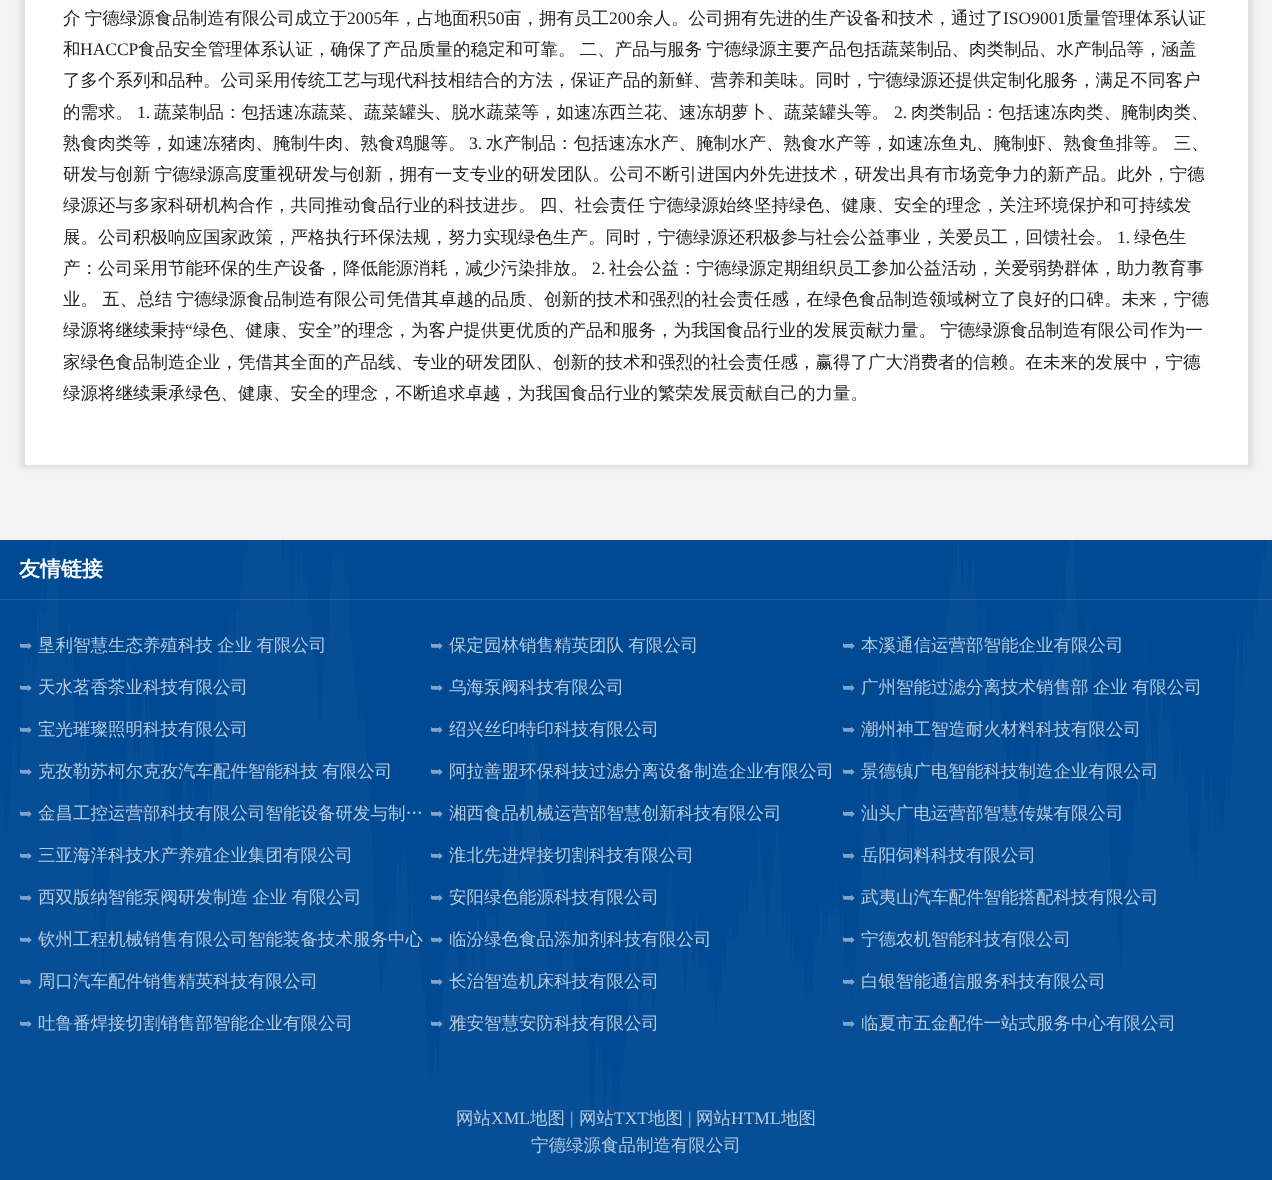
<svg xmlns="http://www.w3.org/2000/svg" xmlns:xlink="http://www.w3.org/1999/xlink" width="1272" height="1180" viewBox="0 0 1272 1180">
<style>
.cls-1{font:500 17.5px WenQuanYi Zen Hei;fill:#232323}
.cls-2{font:17.5px Liberation Serif;fill:#232323}
.cls-3{font:bold 21px WenQuanYi Zen Hei;fill:#ffffff}
.cls-4{font:16px DejaVu Sans;fill:#7da3c9}
.cls-5{font:500 17.5px WenQuanYi Zen Hei;fill:#b4cae0}
.cls-6{font:17.5px Liberation Serif;fill:#b4cae0}
</style>
<rect width="100%" height="100%" fill="#f3f3f3"/>
<rect fill="#000000" fill-opacity="0.08" filter="blur(2.5px)" x="20" y="-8" width="1233" height="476"/>
<rect fill="#ffffff" x="25" y="0" width="1223" height="465"/>
<rect fill="#004a94" x="0" y="540" width="1272" height="640"/>
<image xlink:href="image0.png" x="0" y="540" width="1272" height="640"/>
<rect fill="#ffffff" fill-opacity="0.13" x="0" y="599" width="1272" height="1"/>
<text class="cls-1" x="63" y="24" word-spacing="-1">介 宁德绿源食品制造有限公司成立于</text>
<text class="cls-2" x="347" y="24">2005</text>
<text class="cls-1" x="382" y="24">年，占地面积</text>
<text class="cls-2" x="487" y="24">50</text>
<text class="cls-1" x="504" y="24">亩，拥有员工</text>
<text class="cls-2" x="609" y="24">200</text>
<text class="cls-1" x="636" y="24">余人。公司拥有先进的生产设备和技术，通过了</text>
<text class="cls-2" x="1003" y="24">ISO9001</text>
<text class="cls-1" x="1066" y="24">质量管理体系认证</text>
<text class="cls-1" x="63" y="55">和</text>
<text class="cls-2" x="80" y="55">HACCP</text>
<text class="cls-1" x="138" y="55" word-spacing="-1">食品安全管理体系认证，确保了产品质量的稳定和可靠。 二、产品与服务 宁德绿源主要产品包括蔬菜制品、肉类制品、水产制品等，涵盖</text>
<text class="cls-1"><tspan x="63" y="86">了多个系列和品种。公司采用传统工艺与现代科技相结合的方法，保证产品的新鲜、营养和美味。同时，宁德绿源还提供定制化服务，满足不同客户</tspan><tspan x="63" y="118">的需求。</tspan></text>
<text class="cls-2" x="137" y="118">1.</text>
<text class="cls-1" x="154" y="118">蔬菜制品：包括速冻蔬菜、蔬菜罐头、脱水蔬菜等，如速冻西兰花、速冻胡萝卜、蔬菜罐头等。</text>
<text class="cls-2" x="894" y="118">2.</text>
<text class="cls-1" x="911" y="118">肉类制品：包括速冻肉类、腌制肉类、</text>
<text class="cls-1" x="63" y="149">熟食肉类等，如速冻猪肉、腌制牛肉、熟食鸡腿等。</text>
<text class="cls-2" x="469" y="149">3.</text>
<text class="cls-1" x="486" y="149">水产制品：包括速冻水产、腌制水产、熟食水产等，如速冻鱼丸、腌制虾、熟食鱼排等。 三、</text>
<text class="cls-1"><tspan x="63" y="180" word-spacing="-1">研发与创新 宁德绿源高度重视研发与创新，拥有一支专业的研发团队。公司不断引进国内外先进技术，研发出具有市场竞争力的新产品。此外，宁德</tspan><tspan x="63" y="211" word-spacing="-1">绿源还与多家科研机构合作，共同推动食品行业的科技进步。 四、社会责任 宁德绿源始终坚持绿色、健康、安全的理念，关注环境保护和可持续发</tspan><tspan x="63" y="243">展。公司积极响应国家政策，严格执行环保法规，努力实现绿色生产。同时，宁德绿源还积极参与社会公益事业，关爱员工，回馈社会。</tspan></text>
<text class="cls-2" x="1117" y="243">1.</text>
<text class="cls-1" x="1134" y="243">绿色生</text>
<text class="cls-1" x="63" y="274">产：公司采用节能环保的生产设备，降低能源消耗，减少污染排放。</text>
<text class="cls-2" x="592" y="274">2.</text>
<text class="cls-1" x="609" y="274">社会公益：宁德绿源定期组织员工参加公益活动，关爱弱势群体，助力教育事</text>
<text class="cls-1"><tspan x="63" y="305" word-spacing="-1">业。 五、总结 宁德绿源食品制造有限公司凭借其卓越的品质、创新的技术和强烈的社会责任感，在绿色食品制造领域树立了良好的口碑。未来，宁德</tspan><tspan x="63" y="336">绿源将继续秉持</tspan></text>
<text class="cls-2" x="185" y="336">“</text>
<text class="cls-1" x="193" y="336">绿色、健康、安全</text>
<text class="cls-2" x="333" y="336">”</text>
<text class="cls-1" x="341" y="336" word-spacing="-1">的理念，为客户提供更优质的产品和服务，为我国食品行业的发展贡献力量。 宁德绿源食品制造有限公司作为一</text>
<text class="cls-1"><tspan x="63" y="368">家绿色食品制造企业，凭借其全面的产品线、专业的研发团队、创新的技术和强烈的社会责任感，赢得了广大消费者的信赖。在未来的发展中，宁德</tspan><tspan x="63" y="399">绿源将继续秉承绿色、健康、安全的理念，不断追求卓越，为我国食品行业的繁荣发展贡献自己的力量。</tspan></text>
<text class="cls-3" x="19" y="576">友情链接</text>
<text class="cls-4" x="19" y="651">➥</text>
<text class="cls-5" x="38" y="651" word-spacing="-1">垦利智慧生态养殖科技 企业 有限公司</text>
<text class="cls-4" x="430" y="651">➥</text>
<text class="cls-5" x="449" y="651" word-spacing="-1">保定园林销售精英团队 有限公司</text>
<text class="cls-4" x="842" y="651">➥</text>
<text class="cls-5" x="861" y="651">本溪通信运营部智能企业有限公司</text>
<text class="cls-4" x="19" y="693">➥</text>
<text class="cls-5" x="38" y="693">天水茗香茶业科技有限公司</text>
<text class="cls-4" x="430" y="693">➥</text>
<text class="cls-5" x="449" y="693">乌海泵阀科技有限公司</text>
<text class="cls-4" x="842" y="693">➥</text>
<text class="cls-5" x="861" y="693" word-spacing="-1">广州智能过滤分离技术销售部 企业 有限公司</text>
<text class="cls-4" x="19" y="735">➥</text>
<text class="cls-5" x="38" y="735">宝光璀璨照明科技有限公司</text>
<text class="cls-4" x="430" y="735">➥</text>
<text class="cls-5" x="449" y="735">绍兴丝印特印科技有限公司</text>
<text class="cls-4" x="842" y="735">➥</text>
<text class="cls-5" x="861" y="735">潮州神工智造耐火材料科技有限公司</text>
<text class="cls-4" x="19" y="777">➥</text>
<text class="cls-5" x="38" y="777" word-spacing="-1">克孜勒苏柯尔克孜汽车配件智能科技 有限公司</text>
<text class="cls-4" x="430" y="777">➥</text>
<text class="cls-5" x="449" y="777">阿拉善盟环保科技过滤分离设备制造企业有限公司</text>
<text class="cls-4" x="842" y="777">➥</text>
<text class="cls-5" x="861" y="777">景德镇广电智能科技制造企业有限公司</text>
<text class="cls-4" x="19" y="819">➥</text>
<text class="cls-5" x="38" y="819">金昌工控运营部科技有限公司智能设备研发与制…</text>
<text class="cls-4" x="430" y="819">➥</text>
<text class="cls-5" x="449" y="819">湘西食品机械运营部智慧创新科技有限公司</text>
<text class="cls-4" x="842" y="819">➥</text>
<text class="cls-5" x="861" y="819">汕头广电运营部智慧传媒有限公司</text>
<text class="cls-4" x="19" y="861">➥</text>
<text class="cls-5" x="38" y="861">三亚海洋科技水产养殖企业集团有限公司</text>
<text class="cls-4" x="430" y="861">➥</text>
<text class="cls-5" x="449" y="861">淮北先进焊接切割科技有限公司</text>
<text class="cls-4" x="842" y="861">➥</text>
<text class="cls-5" x="861" y="861">岳阳饲料科技有限公司</text>
<text class="cls-4" x="19" y="903">➥</text>
<text class="cls-5" x="38" y="903" word-spacing="-1">西双版纳智能泵阀研发制造 企业 有限公司</text>
<text class="cls-4" x="430" y="903">➥</text>
<text class="cls-5" x="449" y="903">安阳绿色能源科技有限公司</text>
<text class="cls-4" x="842" y="903">➥</text>
<text class="cls-5" x="861" y="903">武夷山汽车配件智能搭配科技有限公司</text>
<text class="cls-4" x="19" y="945">➥</text>
<text class="cls-5" x="38" y="945">钦州工程机械销售有限公司智能装备技术服务中心</text>
<text class="cls-4" x="430" y="945">➥</text>
<text class="cls-5" x="449" y="945">临汾绿色食品添加剂科技有限公司</text>
<text class="cls-4" x="842" y="945">➥</text>
<text class="cls-5" x="861" y="945">宁德农机智能科技有限公司</text>
<text class="cls-4" x="19" y="987">➥</text>
<text class="cls-5" x="38" y="987">周口汽车配件销售精英科技有限公司</text>
<text class="cls-4" x="430" y="987">➥</text>
<text class="cls-5" x="449" y="987">长治智造机床科技有限公司</text>
<text class="cls-4" x="842" y="987">➥</text>
<text class="cls-5" x="861" y="987">白银智能通信服务科技有限公司</text>
<text class="cls-4" x="19" y="1029">➥</text>
<text class="cls-5" x="38" y="1029">吐鲁番焊接切割销售部智能企业有限公司</text>
<text class="cls-4" x="430" y="1029">➥</text>
<text class="cls-5" x="449" y="1029">雅安智慧安防科技有限公司</text>
<text class="cls-4" x="842" y="1029">➥</text>
<text class="cls-5" x="861" y="1029">临夏市五金配件一站式服务中心有限公司</text>
<text class="cls-5" x="456" y="1124">网站</text>
<text class="cls-6" x="491" y="1124">XML</text>
<text class="cls-5" x="530" y="1124">地图</text>
<text class="cls-6" x="570" y="1124">|</text>
<text class="cls-5" x="579" y="1124">网站</text>
<text class="cls-6" x="614" y="1124">TXT</text>
<text class="cls-5" x="648" y="1124">地图</text>
<text class="cls-6" x="688" y="1124">|</text>
<text class="cls-5" x="696" y="1124">网站</text>
<text class="cls-6" x="731" y="1124">HTML</text>
<text class="cls-5" x="781" y="1124">地图</text>
<text class="cls-5" x="531" y="1151">宁德绿源食品制造有限公司</text>
</svg>
